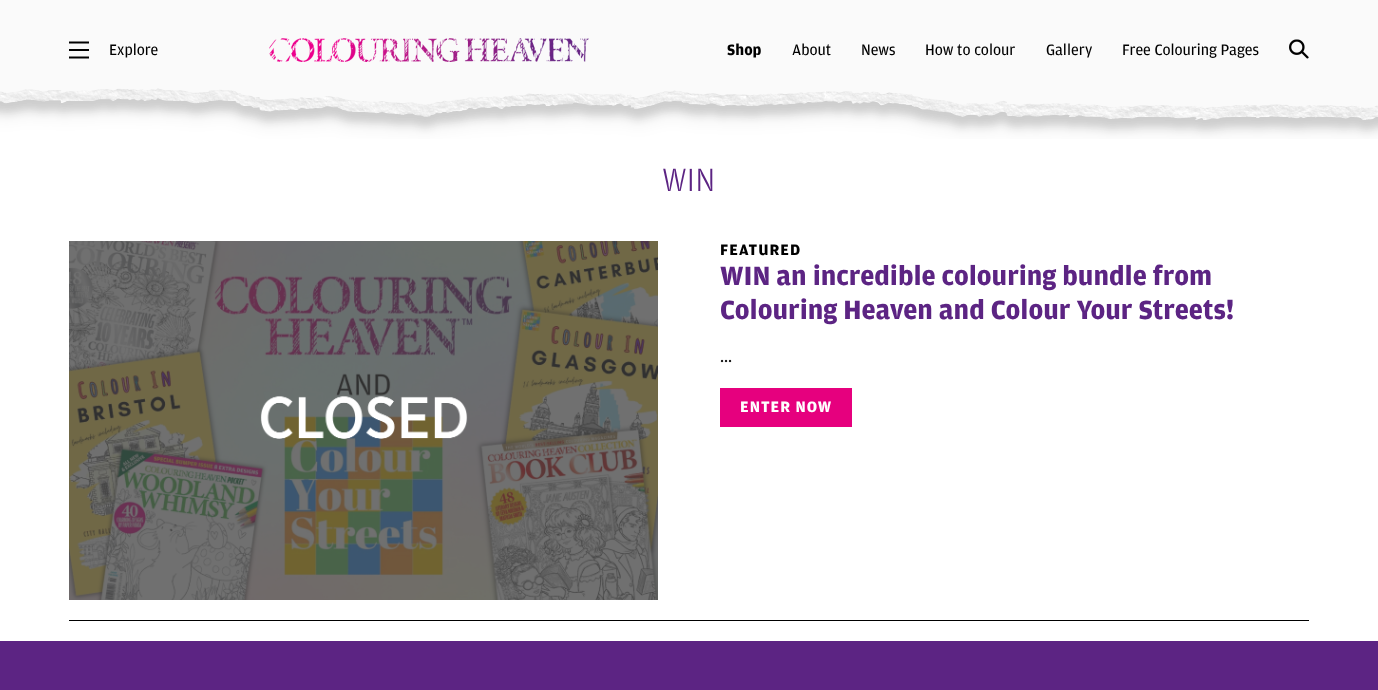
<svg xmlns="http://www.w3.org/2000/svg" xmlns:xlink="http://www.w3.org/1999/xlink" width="1378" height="690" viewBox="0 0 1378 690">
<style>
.cls-1{font:16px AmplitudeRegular;fill:#000000}
.cls-2{font:bold 16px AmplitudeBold;fill:#000000}
.cls-3{font:300 34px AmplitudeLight;fill:#5c2483}
.cls-4{font:bold 16px AmplitudeBold;letter-spacing:1px;fill:#000000}
.cls-5{font:bold 28px AmplitudeBold;fill:#5c2483}
.cls-6{font:bold 16px AmplitudeBold;letter-spacing:1px;fill:#ffffff}
</style>
<rect width="100%" height="100%" fill="#ffffff"/>
<image xlink:href="image0.png" x="0" y="0" width="1378" height="139"/>
<image xlink:href="image1.png" x="69" y="41" width="20" height="18"/>
<image xlink:href="image2.png" x="269" y="38" width="320" height="24"/>
<image xlink:href="image3.png" x="1289" y="39" width="20" height="20"/>
<rect fill="#000000" x="69" y="620" width="1240" height="1"/>
<image xlink:href="image4.png" x="69" y="241" width="589" height="359"/>
<image xlink:href="image5.png" x="69" y="241" width="589" height="359"/>
<rect fill="#e6007e" x="720" y="388" width="132" height="39"/>
<rect fill="#5c2483" x="0" y="641" width="1378" height="49"/>
<text class="cls-1" x="109" y="55">Explore</text>
<text class="cls-2" x="727" y="55">Shop</text>
<text class="cls-1" x="792" y="55">About</text>
<text class="cls-1" x="861" y="55">News</text>
<text class="cls-1" x="925" y="55">How to colour</text>
<text class="cls-1" x="1046" y="55">Gallery</text>
<text class="cls-1" x="1122" y="55">Free Colouring Pages</text>
<text class="cls-3" x="662" y="191">WIN</text>
<text class="cls-4" x="720" y="255">FEATURED</text>
<text class="cls-5"><tspan x="720" y="285">WIN an incredible colouring bundle from</tspan><tspan x="720" y="319">Colouring Heaven and Colour Your Streets!</tspan></text>
<text class="cls-1" x="720" y="362">...</text>
<text class="cls-6" x="740" y="412">ENTER NOW</text>
</svg>
